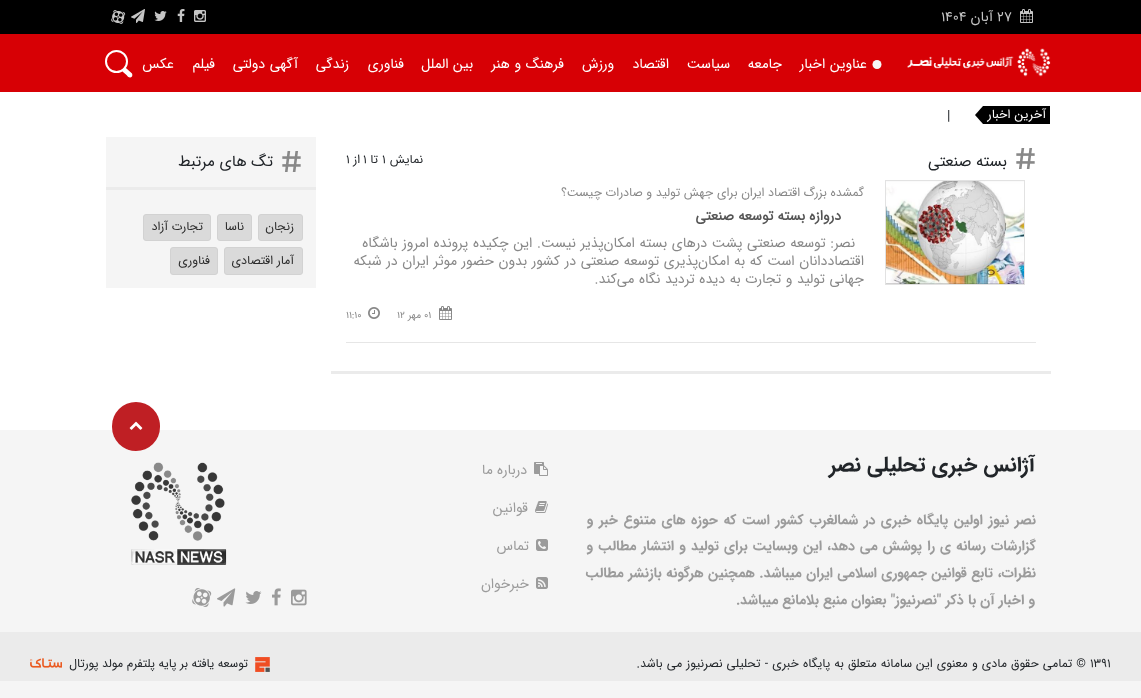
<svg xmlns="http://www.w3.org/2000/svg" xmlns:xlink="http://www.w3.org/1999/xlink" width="1141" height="698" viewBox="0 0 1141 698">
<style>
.cls-1{font:14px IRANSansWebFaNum;fill:#c5c5c5}
.cls-2{font:14px IRANSansWebFaNum;direction:rtl;fill:#c5c5c5}
.cls-3{font:14px IRANSansWebFaNum;direction:rtl;fill:#ffffff}
.cls-4{font:12.5px IRANSansWebFaNum;direction:rtl;fill:#ffffff}
.cls-5{font:14px IRANSansWebFaNum;fill:#212529}
.cls-6{font:15.75px IRANSansWebFaNum;direction:rtl;fill:#212529}
.cls-7{font:12.25px IRANSansWebFaNum;direction:rtl;fill:#212529}
.cls-8{font:12.25px IRANSansWebFaNum;fill:#212529}
.cls-9{font:12.25px IRANSansWebFaNum;direction:rtl;fill:#888888}
.cls-10{font:bold 14px IRANSansWebFaNum;direction:rtl;fill:#555555}
.cls-11{font:14px IRANSansWebFaNum;direction:rtl;fill:#888888}
.cls-12{font:10px IRANSansWebFaNum;fill:#888888}
.cls-13{font:10px IRANSansWebFaNum;direction:rtl;fill:#888888}
.cls-14{font:12.25px IRANSansWebFaNum;direction:rtl;fill:#2b2b2b}
.cls-15{font:bold 21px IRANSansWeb;direction:rtl;fill:#212529}
.cls-16{font:bold 14px IRANSansWeb;direction:rtl;fill:#9b9b9b}
.cls-17{font:14px IRANSansWebFaNum;direction:rtl;fill:#9b9b9b}
.cls-18{font:12px IRANSansWebFaNum;direction:rtl;fill:#212529}
</style>
<rect width="100%" height="100%" fill="#f5f5f5"/>
<rect fill="#000000" x="0" y="0" width="1141" height="34"/>
<image xlink:href="image0.png" x="1020" y="9" width="13" height="14"/>
<image xlink:href="image1.png" x="194" y="10" width="12" height="12"/>
<image xlink:href="image2.png" x="177" y="9" width="8" height="13"/>
<image xlink:href="image3.png" x="154" y="11" width="13" height="10"/>
<image xlink:href="image4.png" x="131" y="9" width="14" height="14"/>
<image xlink:href="image5.png" x="111" y="10" width="15" height="14"/>
<rect fill="#ffffff" x="0" y="92" width="1141" height="338"/>
<rect fill="#d70005" x="0" y="34" width="1141" height="58"/>
<image xlink:href="image6.png" x="907" y="48" width="144" height="29"/>
<circle fill="#f7f7f7" cx="877" cy="64.5" r="4.5"/>
<circle fill="none" stroke="#ffffff" stroke-width="2" cx="116.5" cy="61.5" r="10.5"/>
<path fill="#ffffff" d="M126.5 68.5L132 73.5C132.5 74.5 132.5 75.5 132 76.5C130 79 127.5 76.5 126.5 75L123 72C121 69.5 124.5 66 126.5 68.5Z"/>
<path fill="#000000" d="M1050 106V124H983L975 115L983 106Z"/>
<rect fill="#ebebeb" x="331" y="371" width="720" height="3"/>
<image xlink:href="image7.png" x="1016" y="148" width="19" height="21"/>
<rect fill="#e6e6e6" x="346" y="342" width="690" height="1"/>
<rect fill="none" stroke="#e2e2e2" x="885.5" y="180.5" width="139" height="104"/>
<image xlink:href="image8.png" x="886" y="181" width="138" height="103"/>
<image xlink:href="image9.png" x="439" y="306" width="13" height="14"/>
<image xlink:href="image10.png" x="368" y="307" width="12" height="12"/>
<rect fill="#f5f5f5" x="106" y="137" width="210" height="151"/>
<rect fill="#ebebeb" x="106" y="187" width="210" height="3"/>
<image xlink:href="image11.png" x="282" y="151" width="19" height="21"/>
<rect fill="#dadada" stroke="#d2d2d2" x="258.5" y="214.5" width="44" height="26" rx="2.5"/>
<rect fill="#dadada" stroke="#d2d2d2" x="217.5" y="214.5" width="34" height="26" rx="2.5"/>
<rect fill="#dadada" stroke="#d2d2d2" x="143.5" y="214.5" width="67" height="26" rx="2.5"/>
<rect fill="#dadada" stroke="#d2d2d2" x="224.5" y="247.5" width="78" height="27" rx="2.5"/>
<rect fill="#dadada" stroke="#d2d2d2" x="170.5" y="247.5" width="47" height="27" rx="2.5"/>
<rect fill="#bf1f24" x="112" y="402" width="48" height="49" rx="24"/>
<image xlink:href="image12.png" x="129" y="421" width="14" height="9"/>
<image xlink:href="image13.png" x="534" y="462" width="14" height="14"/>
<image xlink:href="image14.png" x="535" y="501" width="13" height="12"/>
<image xlink:href="image15.png" x="536" y="539" width="12" height="12"/>
<image xlink:href="image16.png" x="536" y="577" width="12" height="12"/>
<image xlink:href="image17.png" x="131" y="462" width="96" height="103"/>
<image xlink:href="image18.png" x="291" y="589" width="16" height="17"/>
<image xlink:href="image19.png" x="272" y="588" width="9" height="18"/>
<image xlink:href="image20.png" x="245" y="591" width="17" height="13"/>
<image xlink:href="image21.png" x="217" y="588" width="19" height="19"/>
<image xlink:href="image22.png" x="192" y="588" width="20" height="19"/>
<rect fill="#ebebeb" x="0" y="632" width="1141" height="49"/>
<image xlink:href="image23.png" x="255" y="657" width="15" height="15"/>
<image xlink:href="image24.png" x="30" y="658" width="32" height="10"/>
<text class="cls-1" x="997" y="21">27</text>
<text class="cls-2" x="993" y="21">آبان</text>
<text class="cls-1" x="941" y="21">1404</text>
<text class="cls-3" x="867" y="68" word-spacing="0.4">عناوین اخبار</text>
<text class="cls-3" x="782" y="68">جامعه</text>
<text class="cls-3" x="730" y="68">سیاست</text>
<text class="cls-3" x="669" y="68">اقتصاد</text>
<text class="cls-3" x="614" y="68">ورزش</text>
<text class="cls-3" x="564" y="68" word-spacing="0.4">فرهنگ و هنر</text>
<text class="cls-3" x="473" y="68" word-spacing="0.4">بین الملل</text>
<text class="cls-3" x="404" y="68">فناوری</text>
<text class="cls-3" x="349" y="68">زندگی</text>
<text class="cls-3" x="298" y="68" word-spacing="0.4">آگهی دولتی</text>
<text class="cls-3" x="215" y="68">فیلم</text>
<text class="cls-3" x="174" y="68">عکس</text>
<text class="cls-4" x="1046" y="118" word-spacing="0.4">آخرین اخبار</text>
<text class="cls-5" x="947" y="120">|</text>
<text class="cls-6" x="1007" y="166">بسته صنعتی</text>
<text class="cls-7" x="423" y="163">نمایش</text>
<text class="cls-8" x="382" y="163">1</text>
<text class="cls-7" x="378" y="163">تا</text>
<text class="cls-8" x="363" y="163">1</text>
<text class="cls-7" x="360" y="163">از</text>
<text class="cls-8" x="346" y="163">1</text>
<text class="cls-9" x="864" y="196">گمشده بزرگ اقتصاد ایران برای جهش تولید و صادرات چیست؟</text>
<text class="cls-10" x="841" y="220">دروازه بسته توسعه صنعتی</text>
<text class="cls-11" x="855" y="247" word-spacing="0.5">نصر: توسعه صنعتی پشت درهای بسته امکان‌پذیر نیست. این چکیده پرونده امروز باشگاه</text>
<text class="cls-11"><tspan x="864" y="265" word-spacing="0.4">اقتصاددانان است که به امکان‌‌پذیری توسعه صنعتی در کشور بدون حضور موثر ایران در شبکه</tspan><tspan x="864" y="283" word-spacing="0.4">جهانی تولید و تجارت به دیده تردید نگاه می‌کند.</tspan></text>
<text class="cls-12" x="424" y="318">01</text>
<text class="cls-13" x="421" y="318">مهر</text>
<text class="cls-12" x="397" y="318">12</text>
<text class="cls-12" x="346" y="318">11:10</text>
<text class="cls-6" x="273" y="166">تگ های مرتبط</text>
<text class="cls-14" x="294" y="230">زنجان</text>
<text class="cls-14" x="244" y="230">ناسا</text>
<text class="cls-14" x="203" y="230">تجارت آزاد</text>
<text class="cls-14" x="294" y="264">آمار اقتصادی</text>
<text class="cls-14" x="210" y="264">فناوری‌</text>
<text class="cls-15" x="1035" y="471">آژانس خبری تحلیلی نصر</text>
<text class="cls-16"><tspan x="1036" y="524" word-spacing="1.5">نصر نیوز اولین پایگاه خبری در شمالغرب کشور است که حوزه های متنوع خبر و</tspan><tspan x="1036" y="550" word-spacing="1">گزارشات رسانه ی را پوشش می دهد، این وبسایت برای تولید و انتشار مطالب و</tspan><tspan x="1036" y="577" word-spacing="0.4">نظرات، تابع قوانین جمهوری اسلامی ایران میباشد. همچنین هرگونه بازنشر مطالب</tspan></text>
<text class="cls-16" x="1035" y="604">و اخبار آن با ذکر "نصرنیوز" بعنوان منبع بلامانع میباشد.</text>
<text class="cls-17" x="527" y="474">درباره ما</text>
<text class="cls-17" x="528" y="512">قوانین</text>
<text class="cls-17" x="529" y="550">تماس</text>
<text class="cls-17" x="529" y="588">خبرخوان</text>
<text class="cls-8" x="1090" y="667">۱۳۹۱</text>
<text class="cls-7" x="1086" y="667" word-spacing="0.4">© تمامی حقوق مادی و معنوی این سامانه متعلق به پایگاه خبری - تحلیلی نصرنیوز می باشد.</text>
<text class="cls-18" x="248" y="667">توسعه یافته بر پایه پلتفرم مولد پورتال</text>
</svg>
